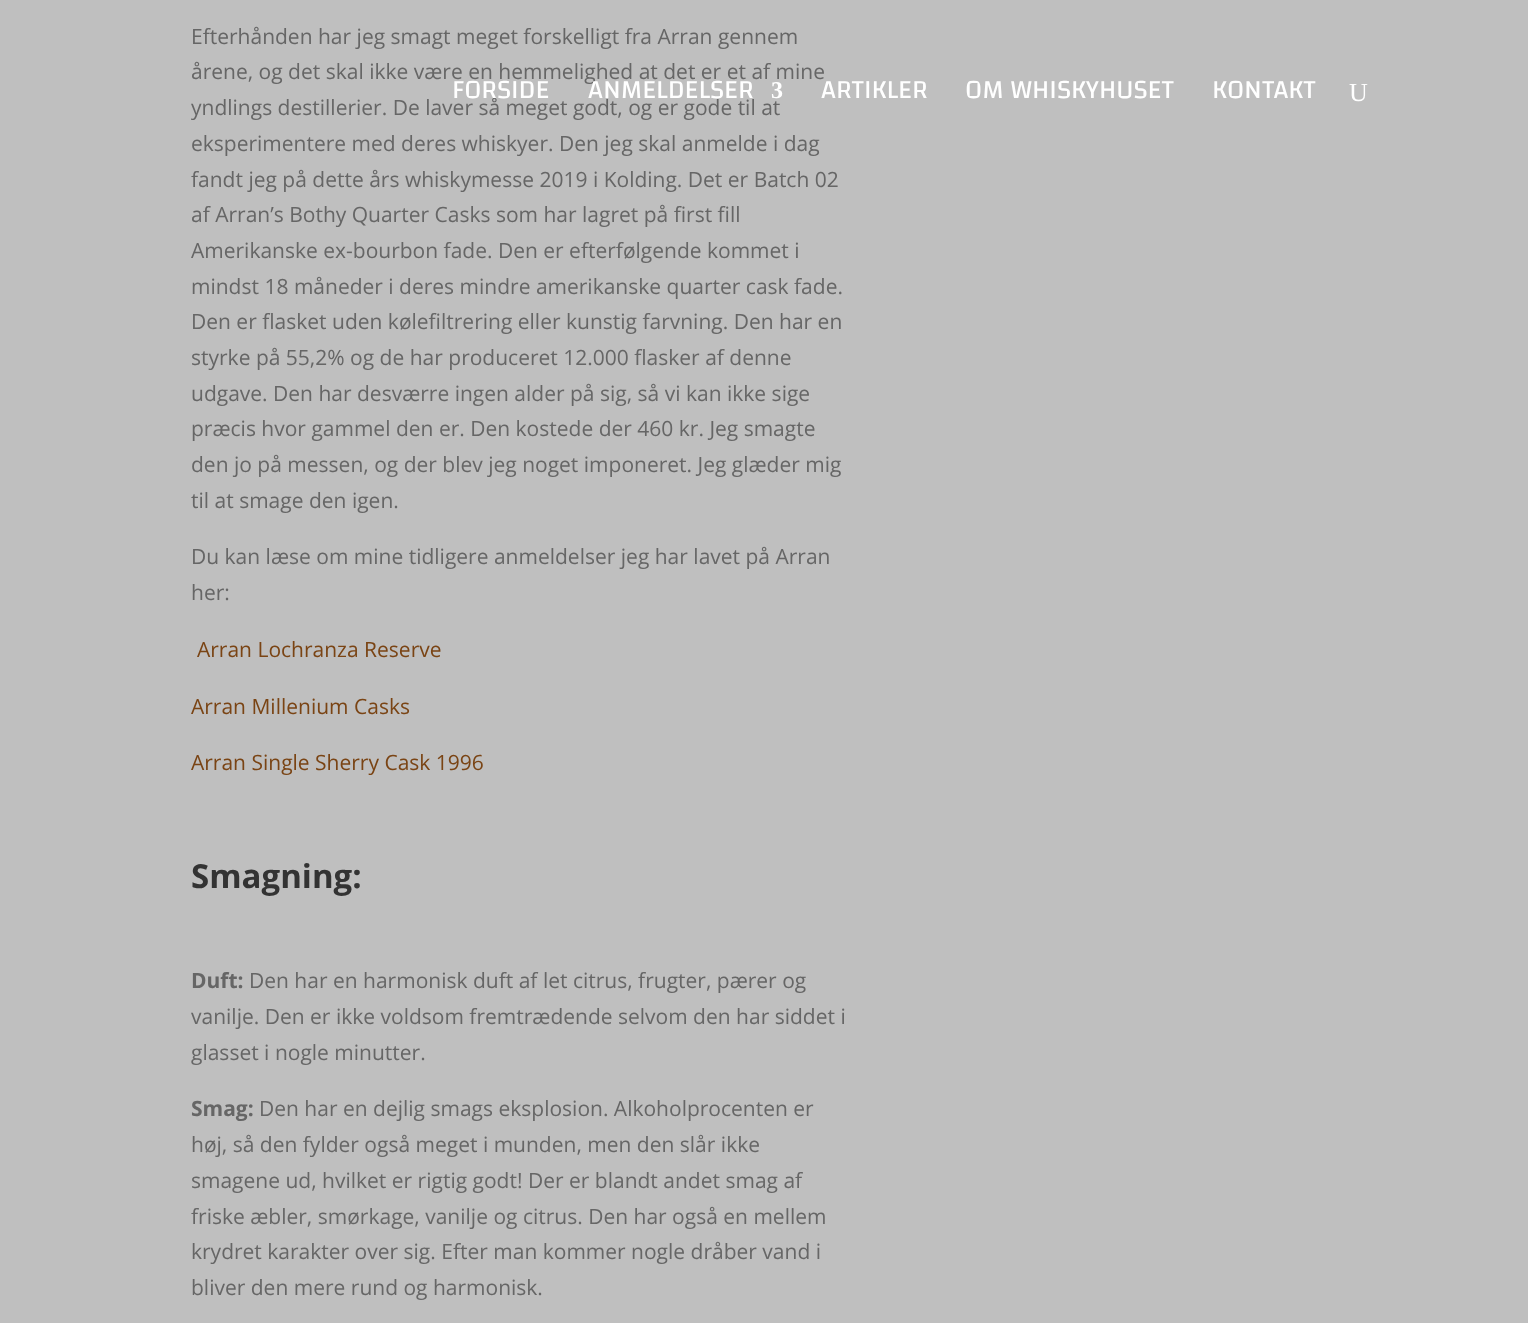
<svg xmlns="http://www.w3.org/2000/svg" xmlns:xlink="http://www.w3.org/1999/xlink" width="1528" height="1323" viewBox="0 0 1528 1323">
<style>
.cls-1{font:21px Open Sans;fill:#666666}
.cls-2{font:21px Open Sans;fill:#7a4414}
.cls-3{font:bold 33px Open Sans;fill:#333333}
.cls-4{font:bold 21px Open Sans;fill:#666666}
.cls-5{font:27px Changa;fill:#ffffff}
.cls-6{font:bold 24px Liberation Serif;fill:#ffffff}
.cls-7{font:26px Liberation Serif;fill:#ffffff}
</style>
<rect width="100%" height="100%" fill="#bfbfbf"/>
<text class="cls-1"><tspan x="191" y="44">Efterhånden har jeg smagt meget forskelligt fra Arran gennem</tspan><tspan x="191" y="79">årene, og det skal ikke være en hemmelighed at det er et af mine</tspan><tspan x="191" y="115">yndlings destillerier. De laver så meget godt, og er gode til at</tspan><tspan x="191" y="151">eksperimentere med deres whiskyer. Den jeg skal anmelde i dag</tspan><tspan x="191" y="187">fandt jeg på dette års whiskymesse 2019 i Kolding. Det er Batch 02</tspan><tspan x="191" y="222">af Arran’s Bothy Quarter Casks som har lagret på first fill</tspan><tspan x="191" y="258">Amerikanske ex-bourbon fade. Den er efterfølgende kommet i</tspan><tspan x="191" y="294">mindst 18 måneder i deres mindre amerikanske quarter cask fade.</tspan><tspan x="191" y="329">Den er flasket uden kølefiltrering eller kunstig farvning. Den har en</tspan><tspan x="191" y="365">styrke på 55,2% og de har produceret 12.000 flasker af denne</tspan><tspan x="191" y="401">udgave. Den har desværre ingen alder på sig, så vi kan ikke sige</tspan><tspan x="191" y="436">præcis hvor gammel den er. Den kostede der 460 kr. Jeg smagte</tspan><tspan x="191" y="472">den jo på messen, og der blev jeg noget imponeret. Jeg glæder mig</tspan><tspan x="191" y="508">til at smage den igen.</tspan></text>
<text class="cls-1"><tspan x="191" y="564">Du kan læse om mine tidligere anmeldelser jeg har lavet på Arran</tspan><tspan x="191" y="600">her:</tspan></text>
<text class="cls-2" x="197" y="657">Arran Lochranza Reserve</text>
<text class="cls-2" x="191" y="714">Arran Millenium Casks</text>
<text class="cls-2" x="191" y="770">Arran Single Sherry Cask 1996</text>
<text class="cls-3" x="191" y="888">Smagning:</text>
<text class="cls-4" x="191" y="988">Duft:</text>
<text class="cls-1" x="249" y="988">Den har en harmonisk duft af let citrus, frugter, pærer og</text>
<text class="cls-1"><tspan x="191" y="1024">vanilje. Den er ikke voldsom fremtrædende selvom den har siddet i</tspan><tspan x="191" y="1060">glasset i nogle minutter.</tspan></text>
<text class="cls-4" x="191" y="1116">Smag:</text>
<text class="cls-1" x="259" y="1116">Den har en dejlig smags eksplosion. Alkoholprocenten er</text>
<text class="cls-1"><tspan x="191" y="1152">høj, så den fylder også meget i munden, men den slår ikke</tspan><tspan x="191" y="1188">smagene ud, hvilket er rigtig godt! Der er blandt andet smag af</tspan><tspan x="191" y="1224">friske æbler, smørkage, vanilje og citrus. Den har også en mellem</tspan><tspan x="191" y="1259">krydret karakter over sig. Efter man kommer nogle dråber vand i</tspan><tspan x="191" y="1295">bliver den mere rund og harmonisk.</tspan></text>
<text class="cls-5" x="452" y="98">FORSIDE</text>
<text class="cls-5" x="588" y="98">ANMELDELSER</text>
<text class="cls-6" x="771" y="98">3</text>
<text class="cls-5" x="821" y="98">ARTIKLER</text>
<text class="cls-5" x="965" y="98">OM WHISKYHUSET</text>
<text class="cls-5" x="1212" y="98">KONTAKT</text>
<text class="cls-7" x="1349" y="101">U</text>
</svg>
